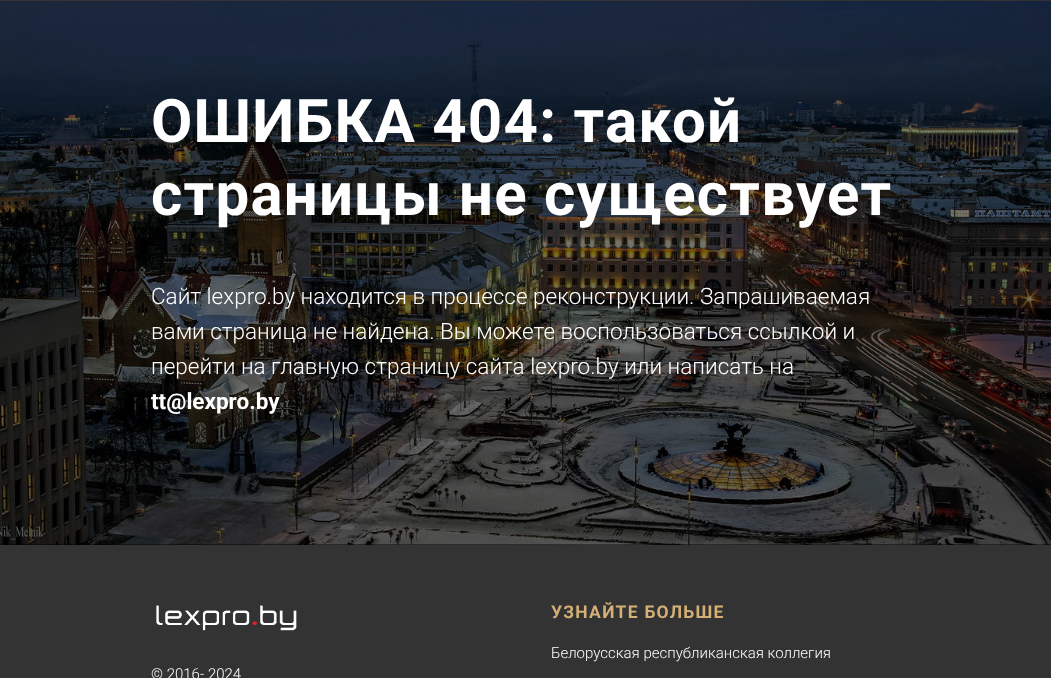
<svg xmlns="http://www.w3.org/2000/svg" xmlns:xlink="http://www.w3.org/1999/xlink" width="1051" height="678" viewBox="0 0 1051 678">
<style>
.cls-1{font:bold 60px Roboto;letter-spacing:1.25px;fill:#ffffff}
.cls-2{font:300 22.5px Roboto;fill:#ffffff}
.cls-3{font:bold 22.5px Roboto;fill:#ffffff}
.cls-4{font:bold 17.5px Roboto;letter-spacing:1.25px;fill:#d4b077}
.cls-5{font:300 15px Roboto;fill:#ffffff}
</style>
<defs>
<linearGradient id="g1" gradientUnits="userSpaceOnUse" x1="526" y1="1.2" x2="526" y2="545"><stop offset="0" stop-color="#000000" stop-opacity="0.5"/><stop offset="1" stop-color="#000000" stop-opacity="0.6"/></linearGradient>
</defs>
<rect width="100%" height="100%" fill="#333333"/>
<rect fill="#000000" x="0" y="544" width="1051" height="1"/>
<image xlink:href="image0.png" x="0" y="1" width="1051" height="544"/>
<rect fill="url(#g1)" x="0" y="1" width="1051" height="544"/>
<image xlink:href="image1.png" x="156" y="605" width="141" height="26"/>
<text class="cls-1"><tspan x="151" y="142">ОШИБКА 404: такой</tspan><tspan x="151" y="215">страницы не существует</tspan></text>
<text class="cls-2"><tspan x="151" y="304">Сайт lexpro.by находится в процессе реконструкции. Запрашиваемая</tspan><tspan x="151" y="339">вами страница не найдена. Вы можете воспользоваться ссылкой и</tspan><tspan x="151" y="374">перейти на главную страницу сайта lexpro.by или написать на</tspan></text>
<text class="cls-3" x="151" y="409">tt@lexpro.by</text>
<text class="cls-4" x="551" y="618">УЗНАЙТЕ БОЛЬШЕ</text>
<text class="cls-5" x="551" y="658">Белорусская республиканская коллегия</text>
<text class="cls-5" x="151" y="679">© 2016- 2024</text>
</svg>
